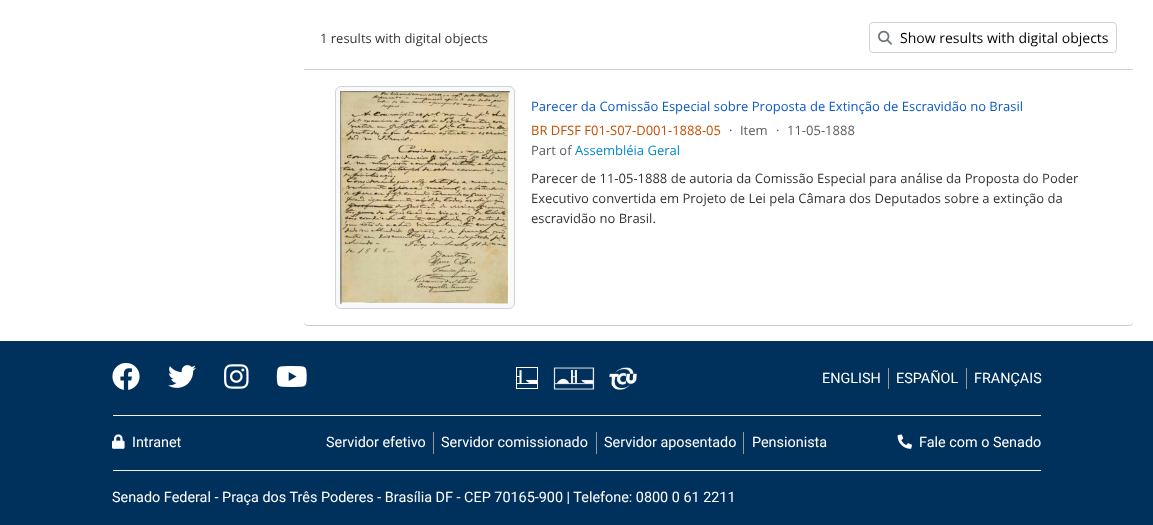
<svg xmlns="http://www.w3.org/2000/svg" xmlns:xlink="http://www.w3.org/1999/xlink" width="1153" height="525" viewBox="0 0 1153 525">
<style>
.cls-1{font:13px Open Sans;fill:#333333}
.cls-2{font:14px Open Sans;fill:#000000}
.cls-3{font:13px Open Sans;fill:#0a58ca}
.cls-4{font:13px Open Sans;fill:#c44e00}
.cls-5{font:13px Open Sans;fill:#595c5f}
.cls-6{font:13px Open Sans;fill:#0088cc}
.cls-7{font:14.4px Roboto;fill:#ffffff}
</style>
<rect width="100%" height="100%" fill="#ffffff"/>
<rect fill="#000000" fill-opacity="0.2" filter="blur(0.5px)" x="304" y="7" width="829" height="319" rx="4"/>
<rect fill="#ffffff" x="304" y="6" width="829" height="319" rx="4"/>
<rect fill="#ced4da" x="304" y="69" width="829" height="1"/>
<rect fill="none" stroke="#ced4da" x="869.5" y="22.5" width="247" height="30" rx="3.5"/>
<image xlink:href="image0.png" x="878" y="30" width="14" height="15"/>
<rect fill="#f8f9fa" stroke="#ced4da" x="335.5" y="86.5" width="179" height="222" rx="5.5"/>
<image xlink:href="image1.png" x="340" y="91" width="170" height="213"/>
<rect fill="#00305c" x="0" y="341" width="1153" height="184"/>
<image xlink:href="image2.png" x="112" y="363" width="28" height="27"/>
<image xlink:href="image3.png" x="168" y="365" width="28" height="23"/>
<image xlink:href="image4.png" x="224" y="364" width="25" height="25"/>
<image xlink:href="image5.png" x="276" y="366" width="31" height="21"/>
<image xlink:href="image6.png" x="516" y="367" width="22" height="22"/>
<image xlink:href="image7.png" x="553" y="367" width="42" height="23"/>
<image xlink:href="image8.png" x="609" y="367" width="28" height="23"/>
<rect fill="#999999" x="888" y="368" width="1" height="21"/>
<rect fill="#999999" x="966" y="368" width="1" height="21"/>
<rect fill="#f1f1f1" x="113" y="415" width="928" height="1"/>
<image xlink:href="image9.png" x="112" y="434" width="13" height="15"/>
<rect fill="#999999" x="433" y="432" width="1" height="22"/>
<rect fill="#999999" x="596" y="432" width="1" height="22"/>
<rect fill="#999999" x="743" y="432" width="1" height="22"/>
<image xlink:href="image10.png" x="897" y="434" width="15" height="15"/>
<rect fill="#f1f1f1" x="113" y="470" width="928" height="1"/>
<text class="cls-1" x="320" y="43">1 results with digital objects</text>
<text class="cls-2" x="900" y="43">Show results with digital objects</text>
<text class="cls-3" x="531" y="111">Parecer da Comissão Especial sobre Proposta de Extinção de Escravidão no Brasil</text>
<text class="cls-4" x="531" y="135">BR DFSF F01-S07-D001-1888-05</text>
<text class="cls-5" x="729" y="135">·</text>
<text class="cls-5" x="740" y="135">Item</text>
<text class="cls-5" x="776" y="135">·</text>
<text class="cls-5" x="787" y="135">11-05-1888</text>
<text class="cls-5" x="531" y="155">Part of</text>
<text class="cls-6" x="575" y="155">Assembléia Geral</text>
<text class="cls-1"><tspan x="531" y="183">Parecer de 11-05-1888 de autoria da Comissão Especial para análise da Proposta do Poder</tspan><tspan x="531" y="203">Executivo convertida em Projeto de Lei pela Câmara dos Deputados sobre a extinção da</tspan><tspan x="531" y="223">escravidão no Brasil.</tspan></text>
<text class="cls-7" x="822" y="383">ENGLISH</text>
<text class="cls-7" x="896" y="383">ESPAÑOL</text>
<text class="cls-7" x="974" y="383">FRANÇAIS</text>
<text class="cls-7" x="132" y="447">Intranet</text>
<text class="cls-7" x="326" y="447">Servidor efetivo</text>
<text class="cls-7" x="441" y="447">Servidor comissionado</text>
<text class="cls-7" x="604" y="447">Servidor aposentado</text>
<text class="cls-7" x="752" y="447">Pensionista</text>
<text class="cls-7" x="919" y="447">Fale com o Senado</text>
<text class="cls-7" x="112" y="502">Senado Federal - Praça dos Três Poderes - Brasília DF - CEP 70165-900 | Telefone: 0800 0 61 2211</text>
</svg>
